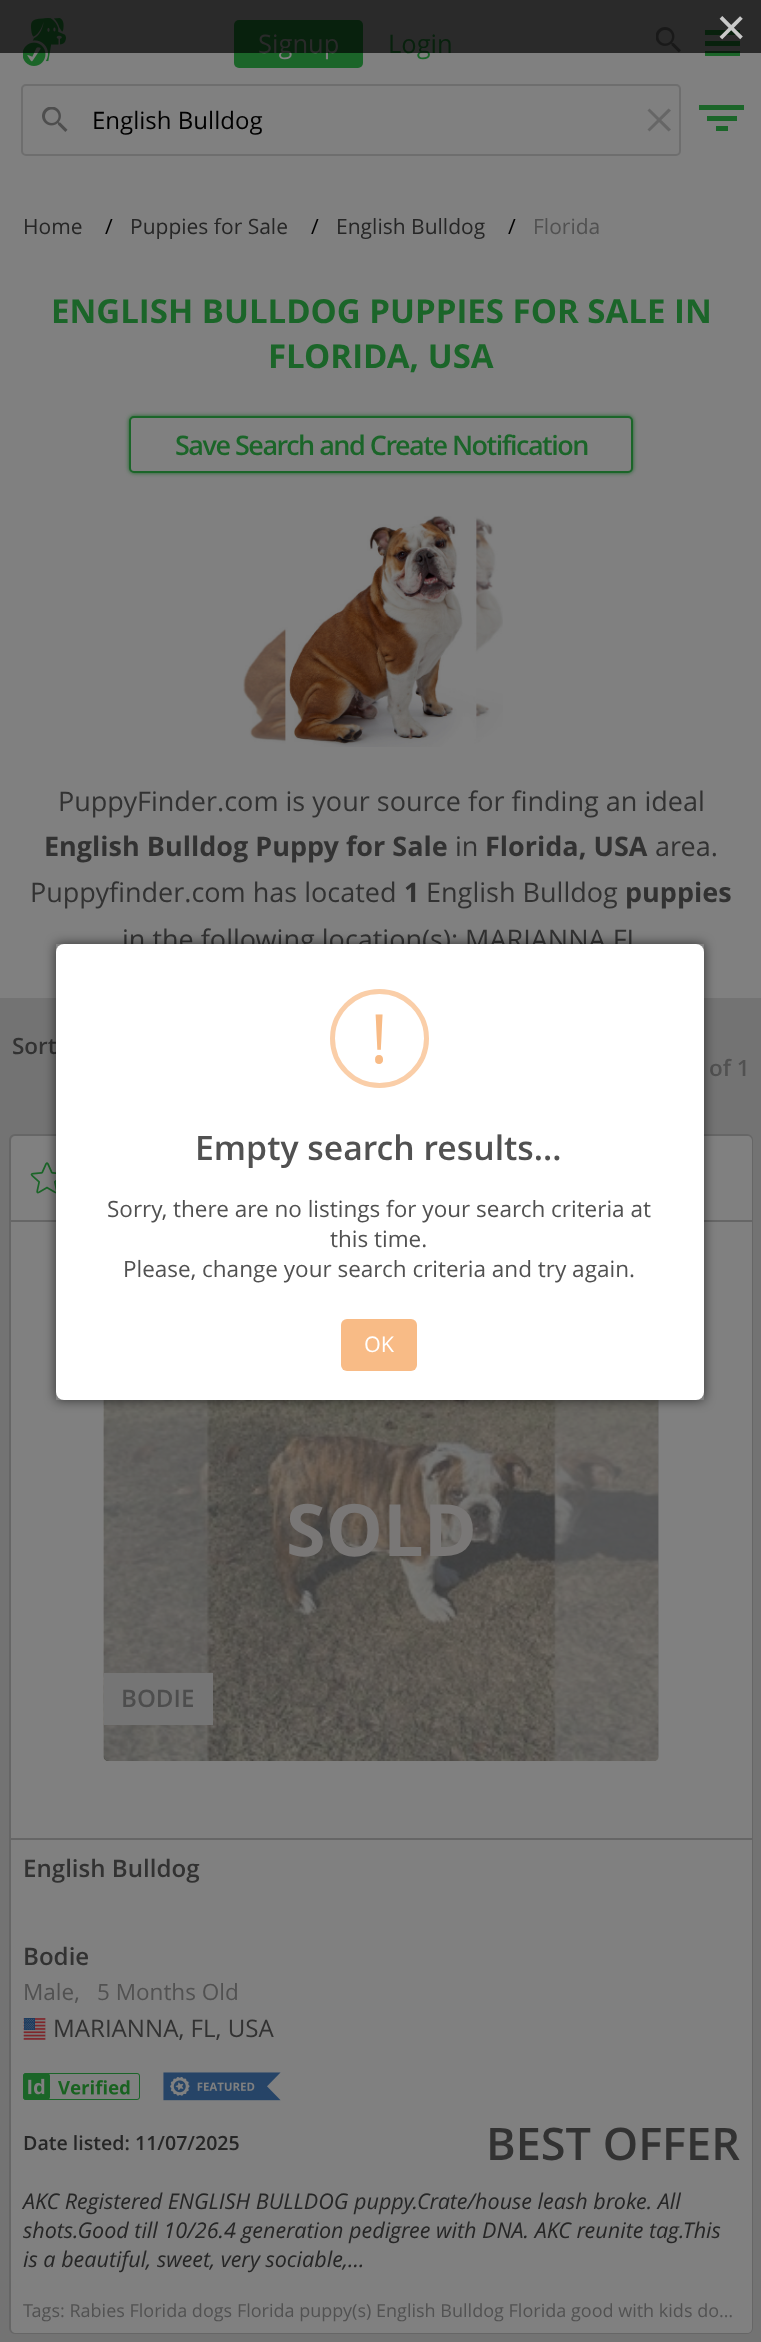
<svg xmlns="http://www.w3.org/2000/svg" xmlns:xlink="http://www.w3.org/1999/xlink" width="761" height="2342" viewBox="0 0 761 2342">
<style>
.cls-1{font:25.5px Open Sans;fill:#808080}
.cls-2{font:25.5px Open Sans;fill:#1b6529}
.cls-3{font:52px Liberation Sans;fill:#c9c9c9}
.cls-4{font:24px Open Sans;fill:#000000}
.cls-5{font:21px Open Sans;fill:#262626}
.cls-6{font:21px Open Sans;fill:#000000}
.cls-7{font:21px Open Sans;fill:#515151}
.cls-8{font:bold 33px Open Sans;fill:#1b6529}
.cls-9{font:600 27px Open Sans;letter-spacing:-1.5px;fill:#1b6529}
.cls-10{font:27px Open Sans;fill:#323232}
.cls-11{font:bold 27px Open Sans;fill:#323232}
.cls-12{font:600 22.5px Open Sans;fill:#323232}
.cls-13{font:600 22.5px Open Sans;fill:#515151}
.cls-14{font:600 24.1px Open Sans;fill:#262626}
.cls-15{font:21.6px Open Sans;fill:#ffffff}
.cls-16{font:22.5px Open Sans;fill:#515151}
.cls-17{font:600 33.75px Open Sans;fill:#515151}
.cls-18{font:68px Open Sans;fill:#f8bb86}
.cls-19{font:bold 72px Open Sans;fill:#797776}
.cls-20{font:600 24.1px Open Sans;fill:#323232}
.cls-21{font:24.1px Open Sans;fill:#323232}
.cls-22{font:600 19.6px Open Sans;fill:#262626}
.cls-23{font:600 45px Open Sans;fill:#323232}
.cls-24{font:italic 21.6px Open Sans;fill:#262626}
.cls-25{font:18px Open Sans;fill:#515151}
</style>
<defs>
<clipPath id="clip1"><path d="M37 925H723V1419H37ZM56 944H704V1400H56Z" clip-rule="evenodd"/></clipPath>
</defs>
<rect width="100%" height="100%" fill="#808080"/>
<image xlink:href="image0.png" x="23" y="18" width="43" height="48"/>
<rect fill="#1b6529" x="234" y="20" width="129" height="48" rx="5"/>
<image xlink:href="image1.png" x="656" y="27" width="25" height="26"/>
<rect fill="#1b6529" x="705" y="41" width="35" height="5"/>
<rect fill="#1b6529" x="705" y="30" width="35" height="5"/>
<rect fill="#1b6529" x="705" y="51" width="35" height="5"/>
<rect fill="none" stroke="#6e6e6e" stroke-width="2" x="22" y="85" width="658" height="70" rx="4"/>
<image xlink:href="image2.png" x="42" y="107" width="26" height="25"/>
<path fill="#666666" d="M649.5 108.5L671 129.5L668.5 131.5L647.5 110.5Z"/>
<path fill="#666666" d="M647.5 129.5L668.5 108.5L671 110.5L649.5 131.5Z"/>
<rect fill="#1b6529" x="699" y="105" width="45" height="5"/>
<rect fill="#1b6529" x="707" y="116" width="30" height="5"/>
<rect fill="#1b6529" x="716" y="126" width="12" height="5"/>
<rect fill="#1b6529" filter="blur(2px)" x="129" y="416" width="504" height="57" rx="5"/>
<rect fill="#808080" stroke="#1b6529" stroke-width="2" x="130" y="417" width="502" height="55" rx="4"/>
<image xlink:href="image3.png" x="243" y="515" width="260" height="232"/>
<rect fill="#737373" x="0" y="998" width="761" height="1344"/>
<rect fill="none" stroke="#666666" stroke-width="2" x="10" y="1135" width="742" height="1198" rx="5"/>
<path fill="#808080" d="M16 1136H747C750 1136 752 1138 752 1141V1221H11V1141C11 1138 13 1136 16 1136Z"/>
<path fill="#808080" d="M11 1221H752V2328C752 2331 750 2333 747 2333H16C13 2333 11 2331 11 2328Z"/>
<rect fill="#666666" x="11" y="1220" width="741" height="2"/>
<image xlink:href="image4.png" x="30" y="1162" width="26" height="32"/>
<image xlink:href="image5.png" x="103" y="1400" width="556" height="361"/>
<rect fill="#808080" x="104" y="1673" width="109" height="52"/>
<rect fill="#666666" x="11" y="1838" width="741" height="2"/>
<image xlink:href="image6.png" x="23" y="2018" width="23" height="22"/>
<image xlink:href="image7.png" x="23" y="2073" width="117" height="27"/>
<image xlink:href="image8.png" x="163" y="2072" width="118" height="29"/>
<text class="cls-1" x="258" y="53">Signup</text>
<text class="cls-2" x="388" y="53">Login</text>
<rect fill="#000000" fill-opacity="0.67" x="0" y="0" width="761" height="53"/>
<text class="cls-3" x="716" y="45">×</text>
<text class="cls-4" x="92" y="129">English Bulldog</text>
<text class="cls-5" x="23" y="234">Home</text>
<text class="cls-6" x="105" y="234">/</text>
<text class="cls-5" x="130" y="234">Puppies for Sale</text>
<text class="cls-6" x="311" y="234">/</text>
<text class="cls-5" x="336" y="234">English Bulldog</text>
<text class="cls-6" x="508" y="234">/</text>
<text class="cls-7" x="533" y="234">Florida</text>
<text class="cls-8" x="51" y="323">ENGLISH BULLDOG PUPPIES FOR SALE IN</text>
<text class="cls-8" x="268" y="368">FLORIDA, USA</text>
<text class="cls-9" x="175" y="455">Save Search and Create Notification</text>
<text class="cls-10" x="58" y="811">PuppyFinder.com is your source for finding an ideal</text>
<text class="cls-11" x="44" y="856">English Bulldog Puppy for Sale</text>
<text class="cls-10" x="455" y="856">in</text>
<text class="cls-11" x="485" y="856">Florida, USA</text>
<text class="cls-10" x="655" y="856">area.</text>
<text class="cls-10" x="30" y="902">Puppyfinder.com has located</text>
<text class="cls-11" x="404" y="902">1</text>
<text class="cls-10" x="426" y="902">English Bulldog</text>
<text class="cls-11" x="625" y="902">puppies</text>
<text class="cls-10" x="122" y="949">in the following location(s): MARIANNA FL</text>
<text class="cls-12" x="12" y="1054">Sort</text>
<text class="cls-13" x="709" y="1076">of 1</text>
<text class="cls-14" x="121" y="1707">BODIE</text>
<rect fill="#6d6d6d" fill-opacity="0.56" x="104" y="1298" width="555" height="463" rx="5"/>
<g clip-path="url(#clip1)">
<rect fill="#000000" fill-opacity="0.6" filter="blur(6px)" x="56" y="944" width="648" height="456"/>
</g>
<rect fill="#ffffff" x="56" y="944" width="648" height="456" rx="8"/>
<rect fill="#f8bb86" x="341" y="1319" width="76" height="52" rx="6"/>
<text class="cls-15" x="364" y="1352">OK</text>
<text class="cls-16" x="123" y="1277">Please, change your search criteria and try again.</text>
<text class="cls-16" x="330" y="1247">this time.</text>
<text class="cls-16" x="107" y="1217">Sorry, there are no listings for your search criteria at</text>
<text class="cls-17" x="195" y="1160">Empty search results...</text>
<circle fill="none" stroke="#facea8" stroke-width="5" cx="379.5" cy="1038.5" r="47"/>
<text class="cls-18" x="370" y="1063">!</text>
<text class="cls-19" x="286" y="1556">SOLD</text>
<text class="cls-20" x="23" y="1877">English Bulldog</text>
<text class="cls-20" x="23" y="1965">Bodie</text>
<text class="cls-16" x="23" y="2000">Male,</text>
<text class="cls-16" x="97" y="2000">5 Months Old</text>
<text class="cls-21" x="53" y="2037">MARIANNA, FL, USA</text>
<text class="cls-22" x="23" y="2150">Date listed: 11/07/2025</text>
<text class="cls-23" x="486" y="2160">BEST OFFER</text>
<text class="cls-24"><tspan x="23" y="2209">AKC Registered ENGLISH BULLDOG puppy.Crate/house leash broke. All</tspan><tspan x="23" y="2238">shots.Good till 10/26.4 generation pedigree with DNA. AKC reunite tag.This</tspan><tspan x="23" y="2267">is a beautiful, sweet, very sociable,...</tspan></text>
<text class="cls-25" x="23" y="2317">Tags: Rabies Florida dogs Florida puppy(s) English Bulldog Florida good with kids do…</text>
</svg>
